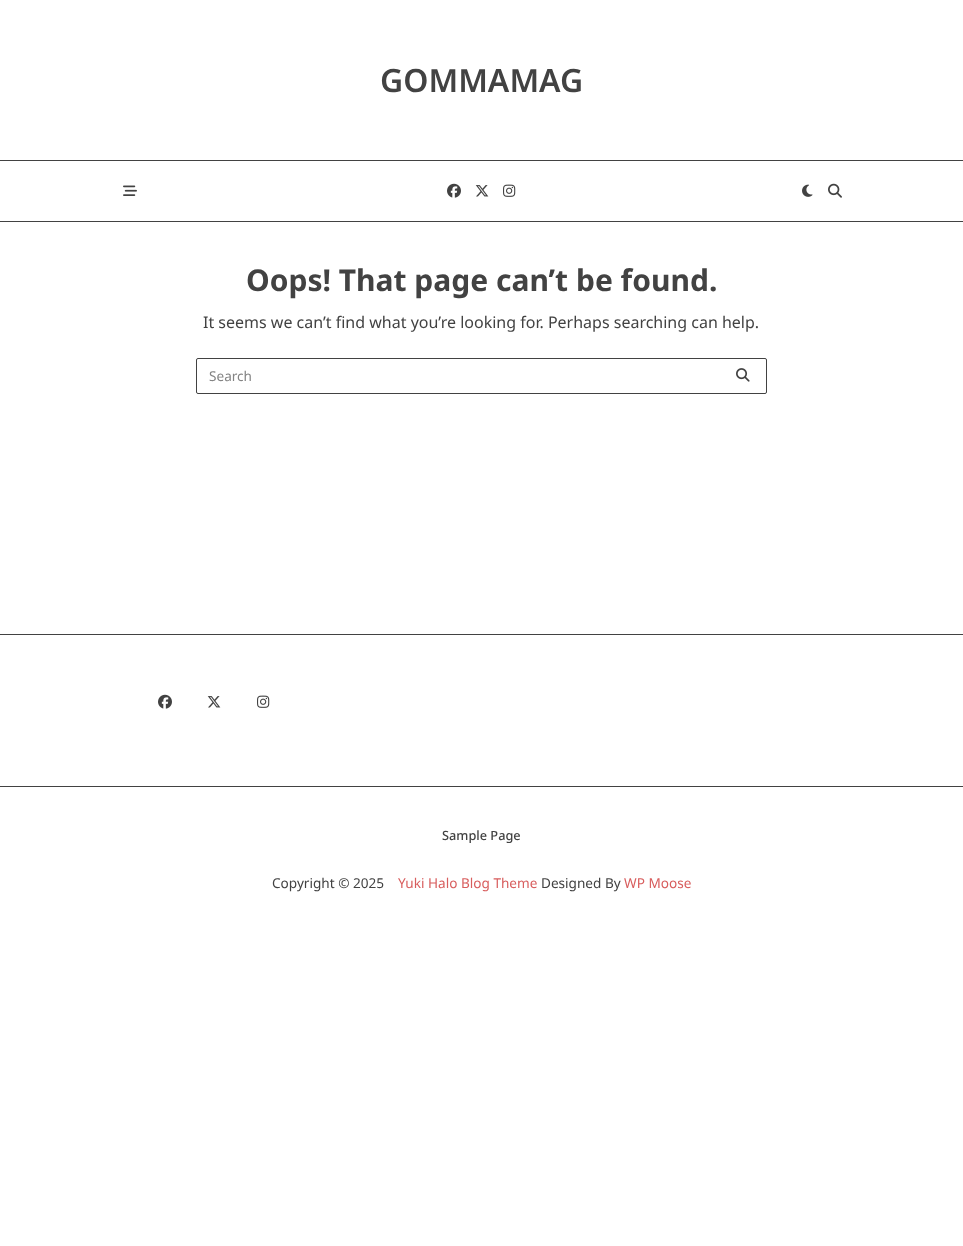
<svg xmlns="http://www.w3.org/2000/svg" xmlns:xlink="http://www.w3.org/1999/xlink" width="963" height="1246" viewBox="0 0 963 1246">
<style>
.cls-1{font:600 32px Noto Sans;fill:#424242}
.cls-2{font:bold 30px Noto Sans;fill:#424242}
.cls-3{font:16px Noto Sans;fill:#424242}
.cls-4{font:13.6px Noto Sans;fill:#848484}
.cls-5{font:500 12.75px Noto Sans;fill:#424242}
.cls-6{font:13.6px Noto Sans;fill:#424242}
.cls-7{font:13.6px Noto Sans;fill:#d85e5e}
</style>
<rect width="100%" height="100%" fill="#ffffff"/>
<rect fill="#424242" x="0" y="160" width="963" height="1"/>
<rect fill="#424242" x="0" y="221" width="963" height="1"/>
<image xlink:href="image0.png" x="123" y="185" width="14" height="11"/>
<image xlink:href="image1.png" x="447" y="183" width="14" height="15"/>
<image xlink:href="image2.png" x="475" y="185" width="14" height="12"/>
<image xlink:href="image3.png" x="503" y="184" width="13" height="13"/>
<image xlink:href="image4.png" x="802" y="184" width="11" height="13"/>
<image xlink:href="image5.png" x="828" y="183" width="14" height="15"/>
<rect fill="none" stroke="#424242" x="196.5" y="358.5" width="570" height="35" rx="1.5"/>
<image xlink:href="image6.png" x="736" y="368" width="14" height="14"/>
<rect fill="#424242" x="0" y="634" width="963" height="1"/>
<image xlink:href="image1.png" x="158" y="694" width="14" height="15"/>
<image xlink:href="image2.png" x="207" y="696" width="14" height="12"/>
<image xlink:href="image3.png" x="257" y="695" width="13" height="13"/>
<rect fill="#424242" x="0" y="786" width="963" height="1"/>
<text class="cls-1" x="380" y="92">GOMMAMAG</text>
<text class="cls-2" x="246" y="291">Oops! That page can’t be found.</text>
<text class="cls-3" x="203" y="328">It seems we can’t find what you’re looking for. Perhaps searching can help.</text>
<text class="cls-4" x="209" y="381">Search</text>
<text class="cls-5" x="442" y="840">Sample Page</text>
<text class="cls-6" x="272" y="888">Copyright © 2025</text>
<text class="cls-7" x="398" y="888">Yuki Halo Blog Theme</text>
<text class="cls-6" x="541" y="888">Designed By</text>
<text class="cls-7" x="624" y="888">WP Moose</text>
</svg>
